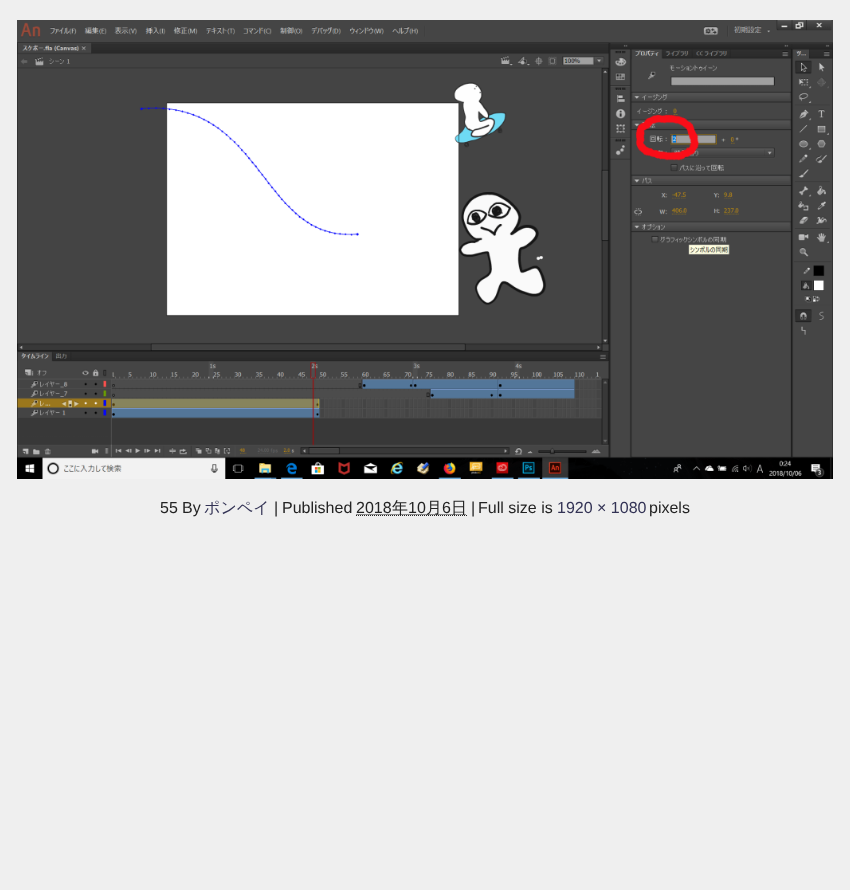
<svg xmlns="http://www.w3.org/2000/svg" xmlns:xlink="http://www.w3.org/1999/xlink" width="850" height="890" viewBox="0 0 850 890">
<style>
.cls-1{font:16px Liberation Sans;fill:#232323}
.cls-2{font:500 16px WenQuanYi Zen Hei;fill:#333355}
.cls-3{font:500 16px WenQuanYi Zen Hei;fill:#232323}
.cls-4{font:16px Liberation Sans;fill:#333355}
</style>
<rect width="100%" height="100%" fill="#efefef"/>
<image xlink:href="image0.png" x="17" y="20" width="816" height="459"/>
<path fill="none" stroke="#232323" stroke-dasharray="1 1" d="M356 515.5H467"/>
<path fill="none" stroke="#232323" stroke-dasharray="1 1" d="M356.5 514.5H466.5"/>
<text class="cls-1" x="160" y="513">55</text>
<text class="cls-1" x="182" y="513">By</text>
<text class="cls-2" x="204" y="513">ポンペイ</text>
<text class="cls-1" x="274" y="513">|</text>
<text class="cls-1" x="282" y="513">Published</text>
<text class="cls-1" x="356" y="513">2018</text>
<text class="cls-3" x="392" y="513">年</text>
<text class="cls-1" x="408" y="513">10</text>
<text class="cls-3" x="426" y="513">月</text>
<text class="cls-1" x="442" y="513">6</text>
<text class="cls-3" x="451" y="513">日</text>
<text class="cls-1" x="471" y="513">|</text>
<text class="cls-1" x="478" y="513">Full size is</text>
<text class="cls-4" x="557" y="513">1920 × 1080</text>
<text class="cls-1" x="649" y="513">pixels</text>
</svg>
